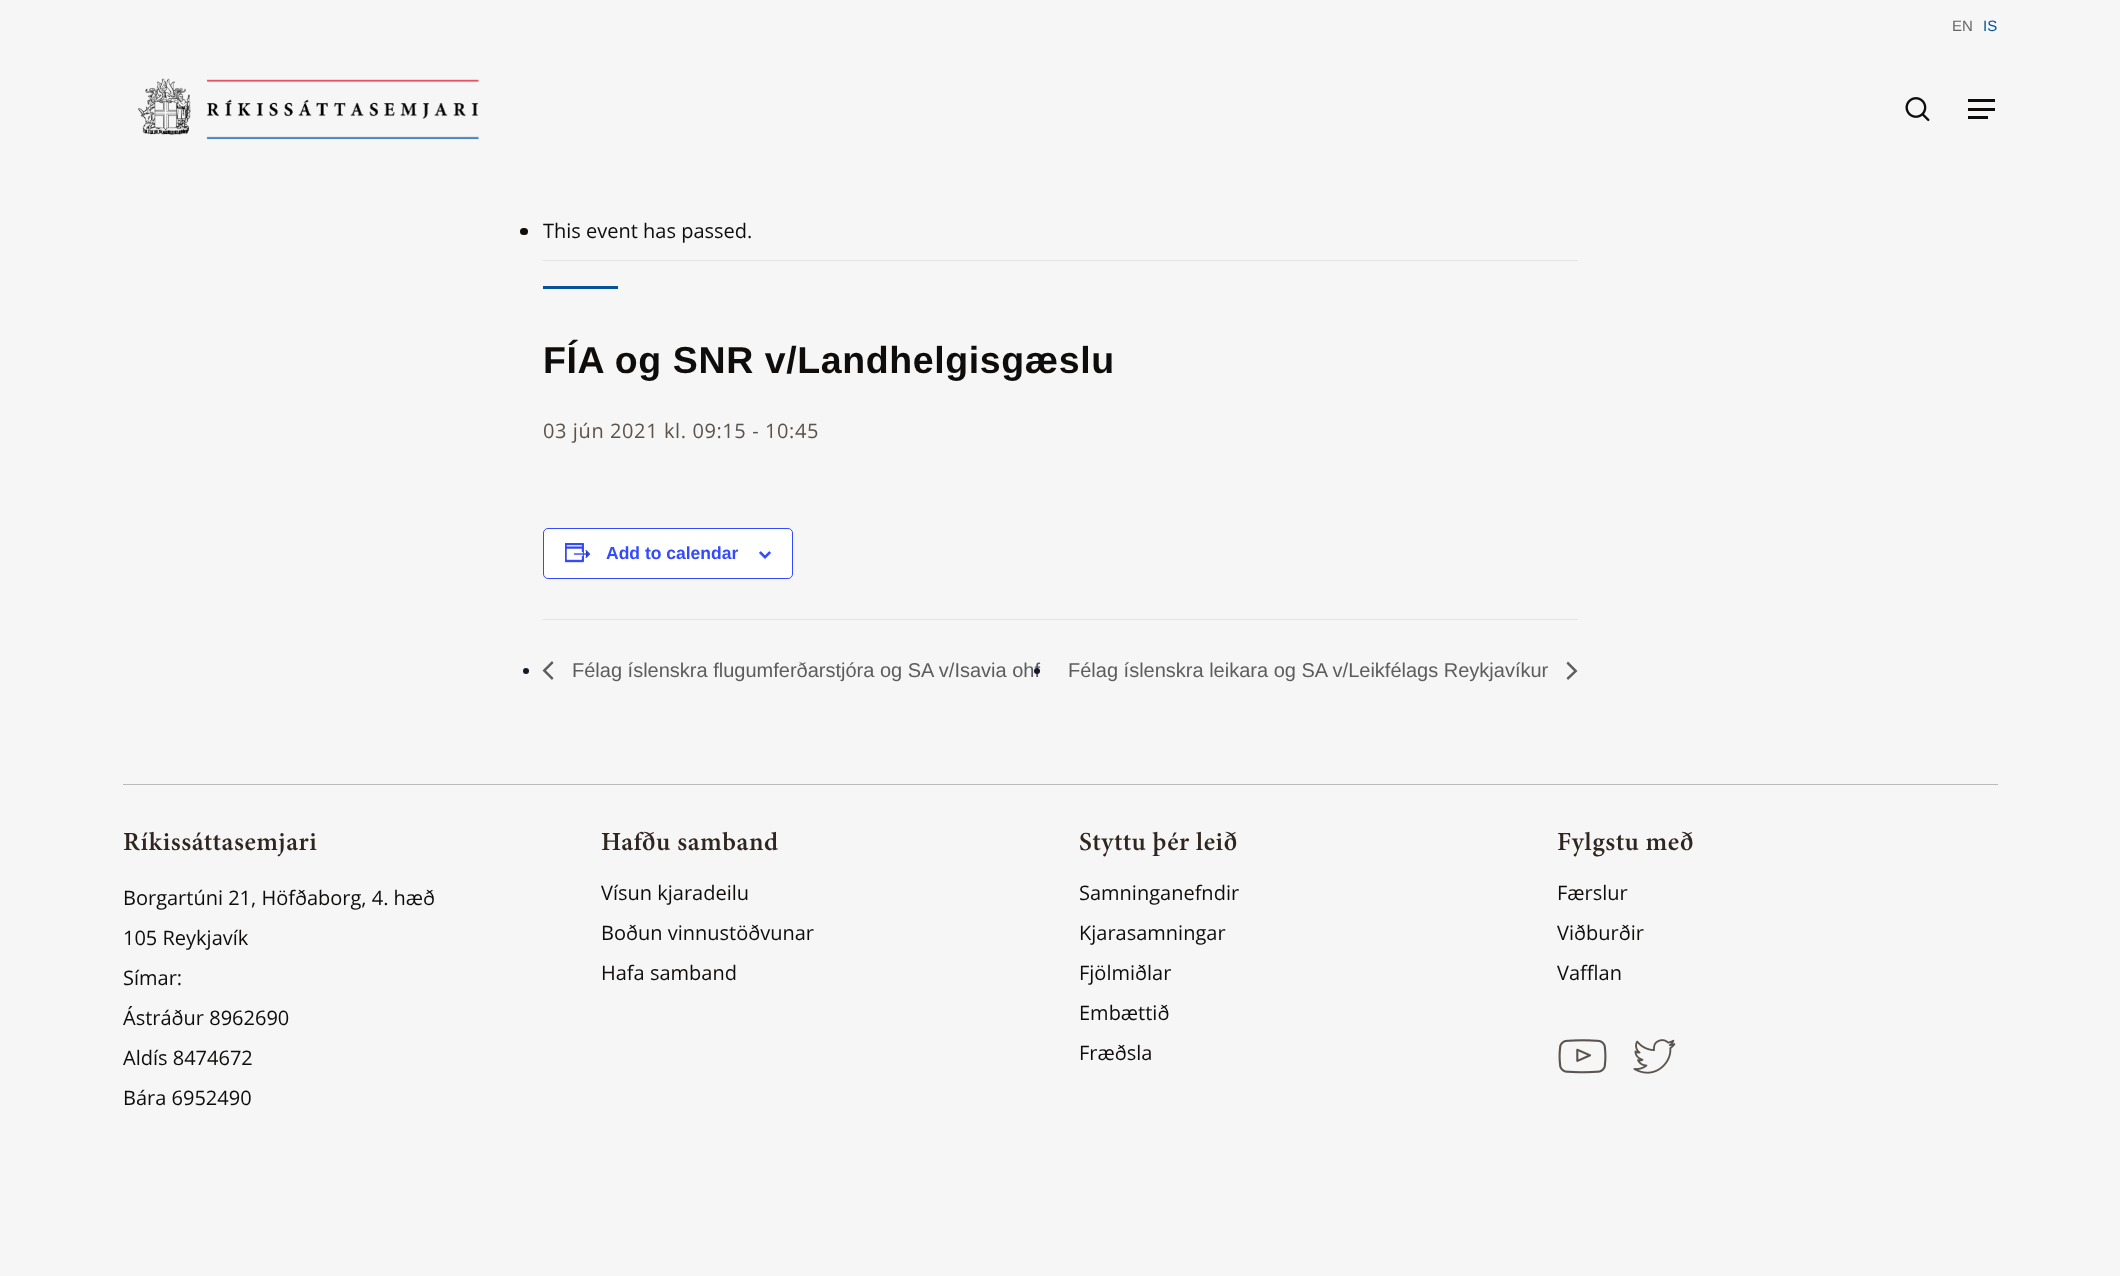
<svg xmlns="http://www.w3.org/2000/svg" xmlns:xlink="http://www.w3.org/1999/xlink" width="2120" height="1276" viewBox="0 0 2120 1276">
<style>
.cls-1{font:15px Liberation Sans;fill:#666666}
.cls-2{font:15px Liberation Sans;fill:#02529c}
.cls-3{font:20px Open Sans;fill:#0f0d0c}
.cls-4{font:bold 37.5px Liberation Sans;letter-spacing:0.6px;fill:#0f0d0c}
.cls-5{font:20px Open Sans;letter-spacing:0.6px;fill:#5a5450}
.cls-6{font:bold 17.5px Liberation Sans;fill:#334aff}
.cls-7{font:20px Liberation Sans;fill:#5d5d5d}
.cls-8{font:600 26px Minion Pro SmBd;letter-spacing:0.6px;fill:#302621}
</style>
<rect width="100%" height="100%" fill="#f6f6f6"/>
<image xlink:href="image0.png" x="138" y="78" width="341" height="62"/>
<image xlink:href="image1.png" x="1905" y="97" width="25" height="25"/>
<rect fill="#0f0d0c" x="1968" y="99" width="27" height="3"/>
<rect fill="#0f0d0c" x="1968" y="116" width="20" height="3"/>
<rect fill="#0f0d0c" x="1968" y="108" width="27" height="3"/>
<rect fill="#e4e4e4" x="543" y="260" width="1035" height="1"/>
<rect fill="#0f0d0c" x="520" y="228" width="8" height="7" rx="3.5"/>
<rect fill="#02529c" x="543" y="286" width="75" height="3"/>
<rect fill="#ffffff" stroke="#334aff" x="543.5" y="528.5" width="249" height="50" rx="4.5"/>
<image xlink:href="image2.png" x="565" y="543" width="26" height="20"/>
<image xlink:href="image3.png" x="759" y="551" width="12" height="8"/>
<rect fill="#e4e4e4" x="543" y="619" width="1035" height="1"/>
<circle fill="#141827" cx="526" cy="671" r="3"/>
<path fill="#5d5d5d" d="M553.5 678L552 680L542.5 670.5L552 661L553.5 663L546 670.5Z"/>
<path fill="#5d5d5d" d="M1566.5 663.5L1568 661.5L1577.5 671L1568 680L1566.5 678L1574 671Z"/>
<rect fill="#bbbbbb" x="123" y="784" width="1875" height="1"/>
<image xlink:href="image4.png" x="1558" y="1039" width="49" height="35"/>
<image xlink:href="image5.png" x="1633" y="1039" width="43" height="35"/>
<text class="cls-1" x="1952" y="31">EN</text>
<text class="cls-2" x="1983" y="31">IS</text>
<text class="cls-3" x="543" y="238">This event has passed.</text>
<text class="cls-4" x="543" y="373">FÍA og SNR v/Landhelgisgæslu</text>
<text class="cls-5" x="543" y="438">03 jún 2021 kl. 09:15 - 10:45</text>
<text class="cls-6" x="606" y="559">Add to calendar</text>
<text class="cls-7" x="572" y="677">Félag íslenskra flugumferðarstjóra og SA v/Isavia ohf</text>
<circle fill="#141827" cx="1037" cy="671" r="3"/>
<text class="cls-7" x="1068" y="677">Félag íslenskra leikara og SA v/Leikfélags Reykjavíkur</text>
<text class="cls-8" x="123" y="850">Ríkissáttasemjari</text>
<text class="cls-3" x="123" y="905">Borgartúni 21, Höfðaborg, 4. hæð</text>
<text class="cls-3" x="123" y="945">105 Reykjavík</text>
<text class="cls-3" x="123" y="985">Símar:</text>
<text class="cls-3" x="123" y="1025">Ástráður 8962690</text>
<text class="cls-3" x="123" y="1065">Aldís 8474672</text>
<text class="cls-3" x="123" y="1105">Bára 6952490</text>
<text class="cls-8" x="601" y="850">Hafðu samband</text>
<text class="cls-3" x="601" y="900">Vísun kjaradeilu</text>
<text class="cls-3" x="601" y="940">Boðun vinnustöðvunar</text>
<text class="cls-3" x="601" y="980">Hafa samband</text>
<text class="cls-8" x="1079" y="850">Styttu þér leið</text>
<text class="cls-3" x="1079" y="900">Samninganefndir</text>
<text class="cls-3" x="1079" y="940">Kjarasamningar</text>
<text class="cls-3" x="1079" y="980">Fjölmiðlar</text>
<text class="cls-3" x="1079" y="1020">Embættið</text>
<text class="cls-3" x="1079" y="1060">Fræðsla</text>
<text class="cls-8" x="1557" y="850">Fylgstu með</text>
<text class="cls-3" x="1557" y="900">Færslur</text>
<text class="cls-3" x="1557" y="940">Viðburðir</text>
<text class="cls-3" x="1557" y="980">Vafflan</text>
</svg>
